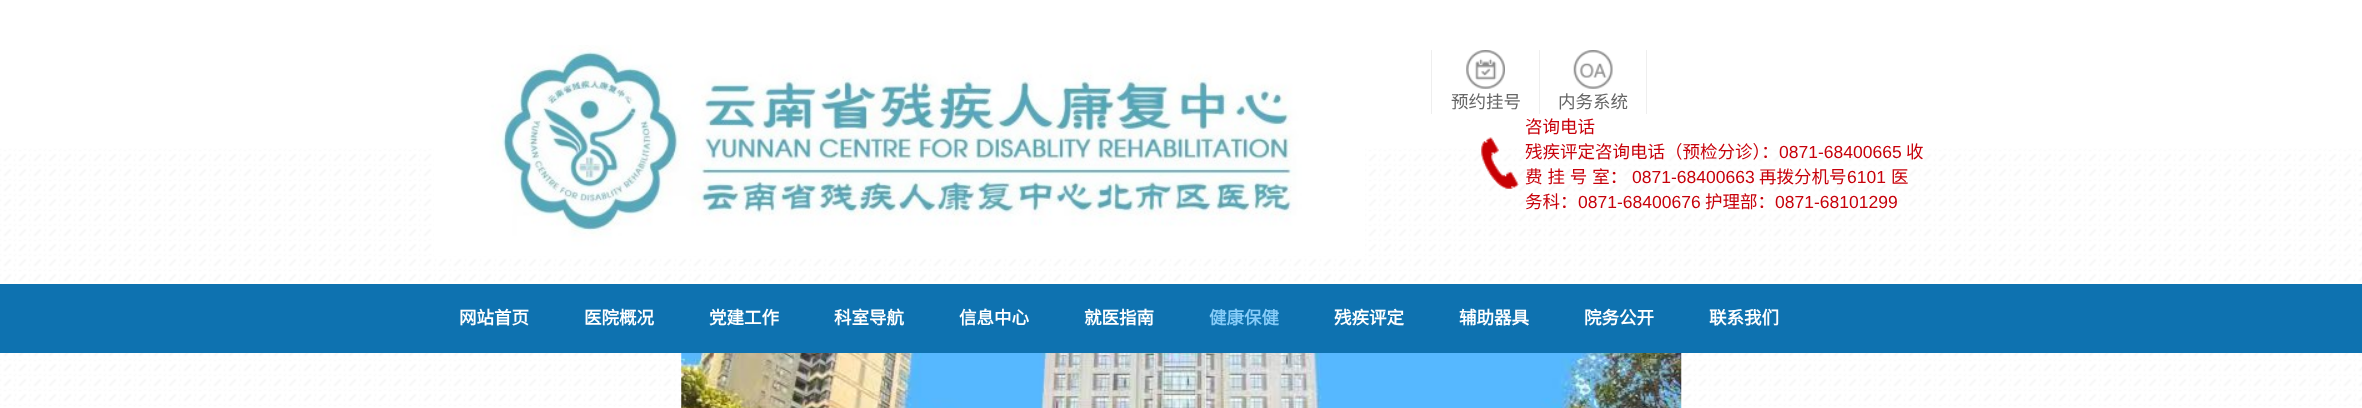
<svg xmlns="http://www.w3.org/2000/svg" xmlns:xlink="http://www.w3.org/1999/xlink" width="2362" height="408" viewBox="0 0 2362 408">
<style>
.cls-1{font:17.5px Noto Sans CJK SC;fill:#666666}
.cls-2{font:17.5px Noto Sans CJK SC;fill:#c7000a}
.cls-3{font:17.5px Liberation Sans;fill:#c7000a}
.cls-4{font:bold 17.5px Noto Sans CJK SC;fill:#ffffff}
.cls-5{font:bold 17.5px Noto Sans CJK SC;fill:#86ccf8}
</style>
<rect width="100%" height="100%" fill="#ffffff"/>
<image xlink:href="image0.png" x="0" y="148" width="2362" height="260"/>
<image xlink:href="image1.png" x="434" y="45" width="931" height="211"/>
<rect fill="#eeeeee" x="1539" y="50" width="1" height="64"/>
<rect fill="#eeeeee" x="1431" y="50" width="1" height="64"/>
<image xlink:href="image2.png" x="1466" y="50" width="39" height="39"/>
<rect fill="#eeeeee" x="1646" y="50" width="1" height="64"/>
<image xlink:href="image3.png" x="1573" y="50" width="40" height="39"/>
<image xlink:href="image4.png" x="1481" y="137" width="38" height="53"/>
<rect fill="#0e72b0" x="0" y="284" width="2362" height="69"/>
<image xlink:href="image5.png" x="681" y="353" width="1001" height="55"/>
<text class="cls-1" x="1451" y="108">预约挂号</text>
<text class="cls-1" x="1558" y="108">内务系统</text>
<text class="cls-2"><tspan x="1525" y="133">咨询电话</tspan><tspan x="1525" y="158">残疾评定咨询电话（预检分诊）：</tspan></text>
<text class="cls-3" x="1779" y="158">0871-68400665</text>
<text class="cls-2" x="1906" y="158">收</text>
<text class="cls-2" x="1525" y="183" word-spacing="1">费 挂 号 室：</text>
<text class="cls-3" x="1632" y="183">0871-68400663</text>
<text class="cls-2" x="1759" y="183">再拨分机号</text>
<text class="cls-3" x="1847" y="183">6101</text>
<text class="cls-2" x="1891" y="183">医</text>
<text class="cls-2" x="1525" y="208">务科：</text>
<text class="cls-3" x="1578" y="208">0871-68400676</text>
<text class="cls-2" x="1705" y="208">护理部：</text>
<text class="cls-3" x="1775" y="208">0871-68101299</text>
<text class="cls-4" x="459" y="324">网站首页</text>
<text class="cls-4" x="584" y="324">医院概况</text>
<text class="cls-4" x="709" y="324">党建工作</text>
<text class="cls-4" x="834" y="324">科室导航</text>
<text class="cls-4" x="959" y="324">信息中心</text>
<text class="cls-4" x="1084" y="324">就医指南</text>
<text class="cls-5" x="1209" y="324">健康保健</text>
<text class="cls-4" x="1334" y="324">残疾评定</text>
<text class="cls-4" x="1459" y="324">辅助器具</text>
<text class="cls-4" x="1584" y="324">院务公开</text>
<text class="cls-4" x="1709" y="324">联系我们</text>
</svg>
